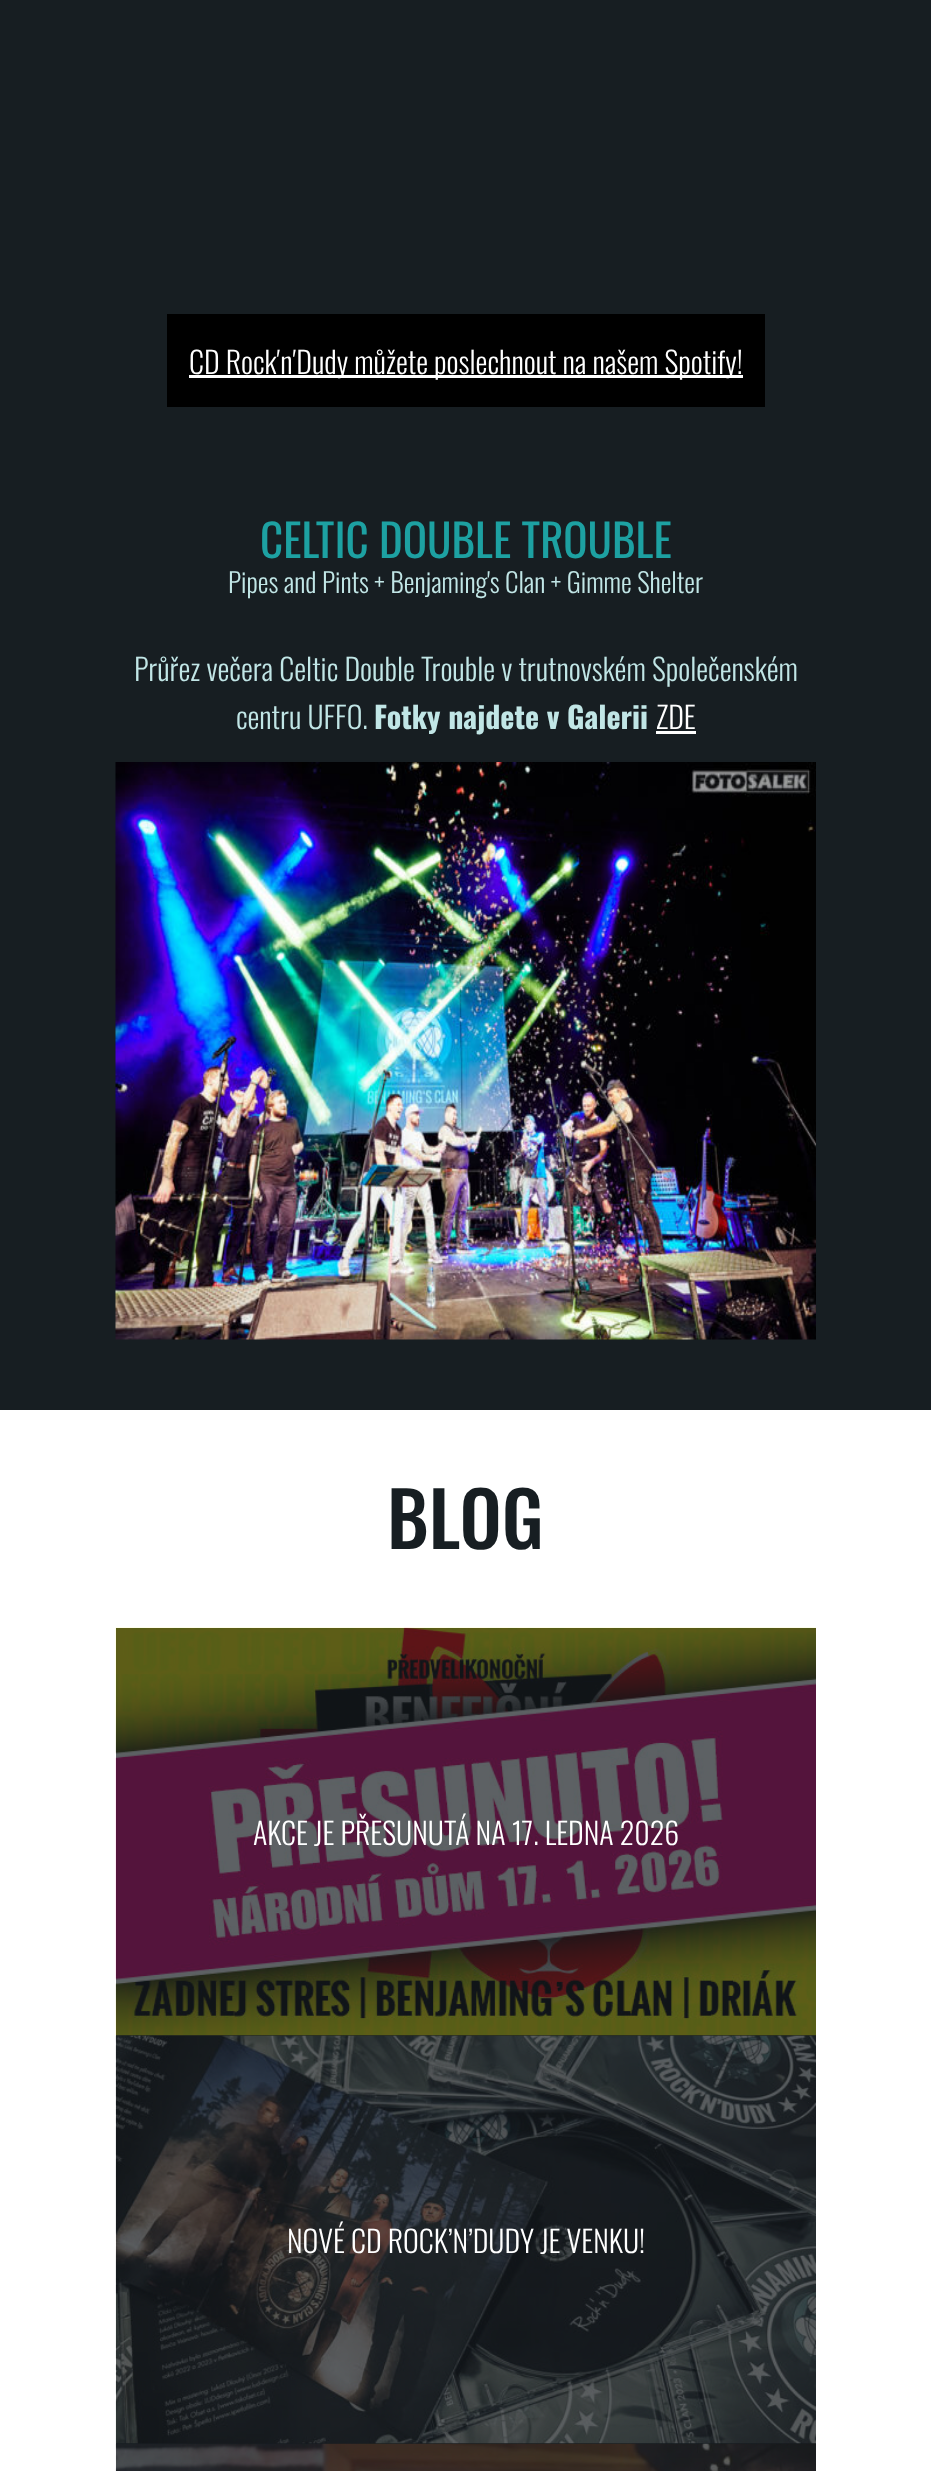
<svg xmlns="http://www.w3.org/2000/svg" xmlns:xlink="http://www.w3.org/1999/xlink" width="931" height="2471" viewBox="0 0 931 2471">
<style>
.cls-1{font:300 30px Oswald;fill:#ffffff}
.cls-2{font:45px Oswald;fill:#1da1a2}
.cls-3{font:300 27px Oswald;fill:#c1e6e6}
.cls-4{font:300 30px Oswald;fill:#c1e6e6}
.cls-5{font:bold 30px Oswald;fill:#c1e6e6}
.cls-6{font:500 75px Oswald;fill:#171e22}
</style>
<rect width="100%" height="100%" fill="#171e22"/>
<rect fill="#000000" x="167" y="314" width="598" height="93"/>
<rect fill="#ffffff" x="189" y="375" width="554" height="3"/>
<rect fill="#ffffff" x="656" y="731" width="40" height="3"/>
<image xlink:href="image0.png" x="115" y="762" width="701" height="578"/>
<rect fill="#ffffff" x="0" y="1410" width="931" height="1061"/>
<rect fill="#171e22" x="116" y="1628" width="700" height="843"/>
<image xlink:href="image1.png" x="115" y="1627" width="701" height="409"/>
<image xlink:href="image2.png" x="115" y="2035" width="701" height="409"/>
<image xlink:href="image3.png" x="115" y="2443" width="701" height="28"/>
<text class="cls-1" x="189" y="374">CD Rock′n′Dudy můžete poslechnout na našem Spotify!</text>
<text class="cls-2" x="260" y="558">CELTIC DOUBLE TROUBLE</text>
<text class="cls-3" x="228" y="593">Pipes and Pints + Benjaming's Clan + Gimme Shelter</text>
<text class="cls-4" x="134" y="681">Průřez večera Celtic Double Trouble v trutnovském Společenském</text>
<text class="cls-4" x="236" y="729">centru UFFO.</text>
<text class="cls-5" x="374" y="729">Fotky najdete v Galerii</text>
<text class="cls-1" x="656" y="729">ZDE</text>
<text class="cls-6" x="387" y="1549">BLOG</text>
<text class="cls-1" x="253" y="1845">AKCE JE PŘESUNUTÁ NA 17. LEDNA 2026</text>
<text class="cls-1" x="287" y="2253">NOVÉ CD ROCK’N’DUDY JE VENKU!</text>
</svg>
